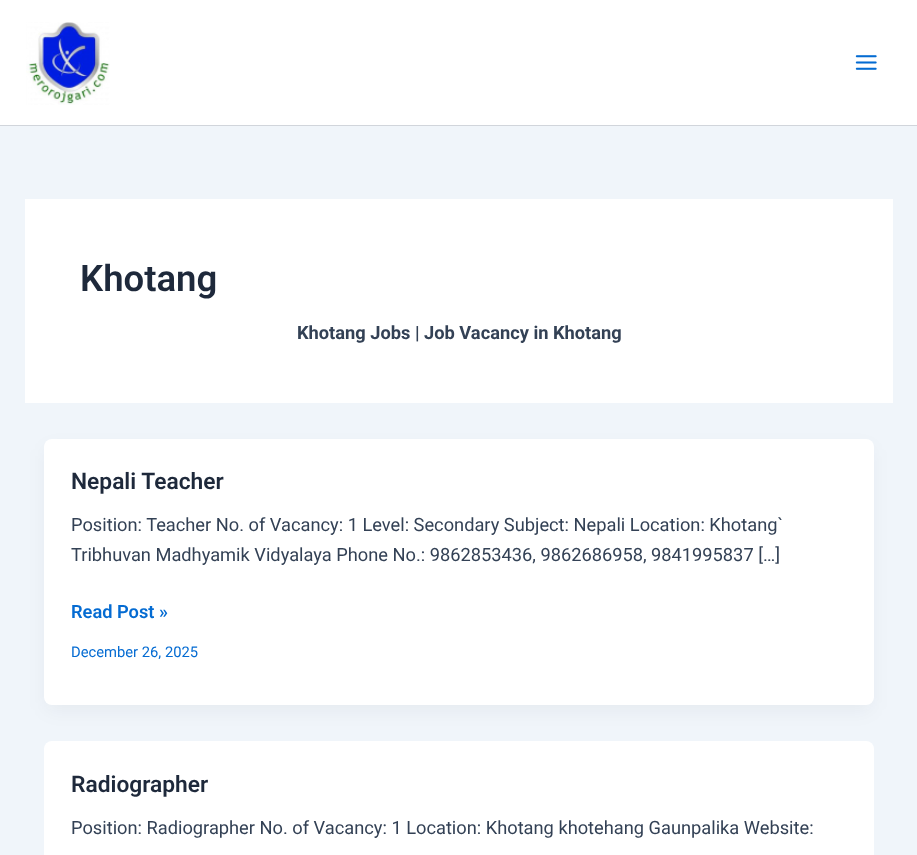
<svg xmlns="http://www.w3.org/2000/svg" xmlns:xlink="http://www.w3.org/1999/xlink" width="917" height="855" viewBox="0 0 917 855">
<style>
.cls-1{font:600 36.5px Roboto;fill:#1e293b}
.cls-2{font:bold 18.25px Roboto;fill:#334155}
.cls-3{font:600 22.75px Roboto;fill:#1e293b}
.cls-4{font:18.25px Roboto;fill:#334155}
.cls-5{font:600 18.25px Roboto;fill:#046bd2}
.cls-6{font:14.75px Roboto;fill:#046bd2}
</style>
<rect width="100%" height="100%" fill="#f0f5fa"/>
<rect fill="#ffffff" x="0" y="0" width="917" height="125"/>
<rect fill="#d1d5db" x="0" y="125" width="917" height="1"/>
<image xlink:href="image0.png" x="26" y="22" width="84" height="83"/>
<image xlink:href="image1.png" x="855" y="55" width="22" height="15"/>
<rect fill="#ffffff" x="25" y="199" width="868" height="204"/>
<rect fill="#101828" fill-opacity="0.05" filter="blur(9.5px)" x="46" y="449" width="825" height="261" rx="5"/>
<rect fill="#ffffff" x="44" y="439" width="830" height="266" rx="8"/>
<rect fill="#ffffff" x="44" y="741" width="830" height="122" rx="8"/>
<text class="cls-1" x="80" y="291">Khotang</text>
<text class="cls-2" x="297" y="339">Khotang Jobs | Job Vacancy in Khotang</text>
<text class="cls-3" x="71" y="489">Nepali Teacher</text>
<text class="cls-4"><tspan x="71" y="531">Position: Teacher No. of Vacancy: 1 Level: Secondary Subject: Nepali Location: Khotang`</tspan><tspan x="71" y="561">Tribhuvan Madhyamik Vidyalaya Phone No.: 9862853436, 9862686958, 9841995837 […]</tspan></text>
<text class="cls-5" x="71" y="618">Read Post »</text>
<text class="cls-6" x="71" y="657">December 26, 2025</text>
<text class="cls-3" x="71" y="792">Radiographer</text>
<text class="cls-4" x="71" y="834">Position: Radiographer No. of Vacancy: 1 Location: Khotang khotehang Gaunpalika Website:</text>
</svg>
